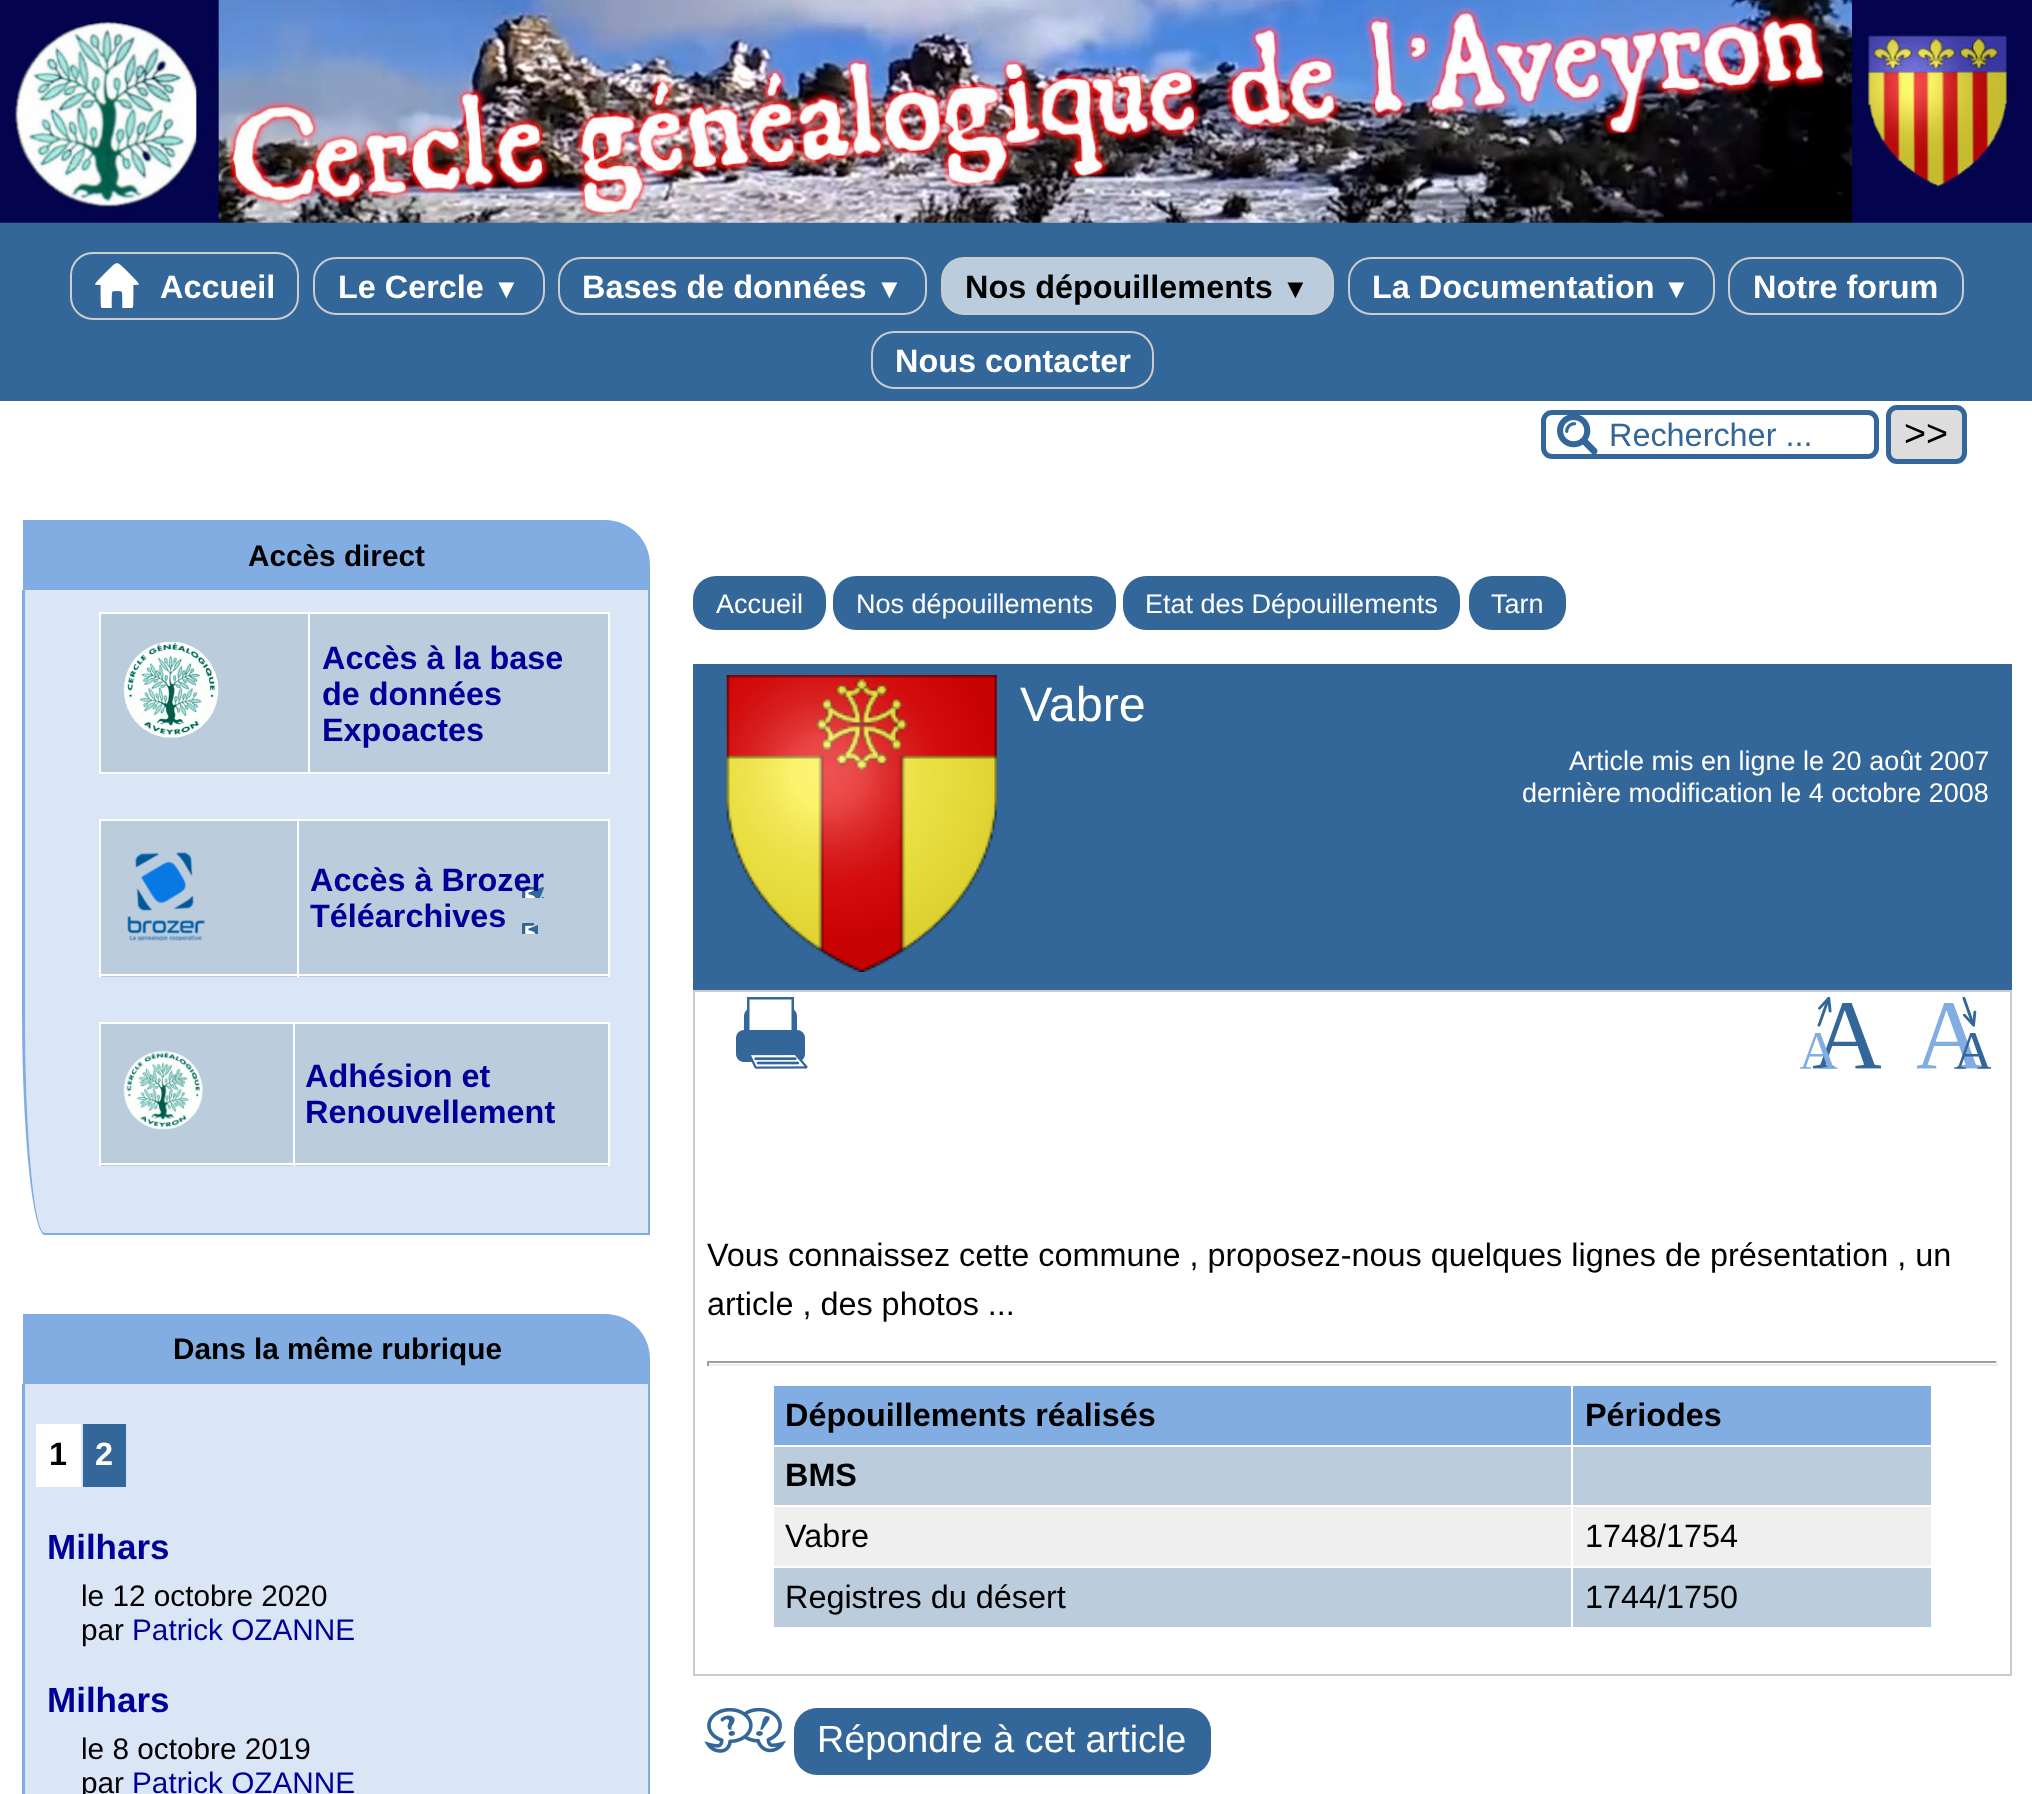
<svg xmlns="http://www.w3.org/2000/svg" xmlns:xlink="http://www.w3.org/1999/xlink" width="2032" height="1794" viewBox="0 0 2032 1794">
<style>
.cls-1{font:bold 32.4px Liberation Sans;fill:#ffffff}
.cls-2{font:bold 27px Liberation Sans;fill:#ffffff}
.cls-3{font:bold 32.4px Liberation Sans;fill:#000000}
.cls-4{font:bold 27px Liberation Sans;fill:#000000}
.cls-5{font:32.4px Liberation Sans;fill:#336699}
.cls-6{font:37.75px Liberation Sans;fill:#000000}
.cls-7{font:bold 29.75px Liberation Sans;fill:#000000}
.cls-8{font:bold 32.4px Liberation Sans;fill:#000099}
.cls-9{font:27px Liberation Sans;fill:#ffffff}
.cls-10{font:48.5px Liberation Sans;fill:#ffffff}
.cls-11{font:32.4px Liberation Sans;fill:#000000}
.cls-12{font:37.75px Liberation Sans;fill:#ffffff}
.cls-13{font:bold 35px Liberation Sans;fill:#000099}
.cls-14{font:29.75px Liberation Sans;fill:#000000}
.cls-15{font:29.75px Liberation Sans;fill:#000099}
</style>
<rect width="100%" height="100%" fill="#ffffff"/>
<rect fill="#336699" x="0" y="222" width="2032" height="179"/>
<image xlink:href="image0.png" x="0" y="0" width="2032" height="223"/>
<rect fill="none" stroke="#cccccc" stroke-width="2" x="71" y="253" width="227" height="66" rx="22"/>
<image xlink:href="image1.png" x="95" y="263" width="44" height="45"/>
<rect fill="none" stroke="#cccccc" stroke-width="2" x="314" y="258" width="230" height="56" rx="22"/>
<rect fill="none" stroke="#cccccc" stroke-width="2" x="559" y="258" width="367" height="56" rx="22"/>
<rect fill="#bbccdd" stroke="#cccccc" stroke-width="2" x="942" y="258" width="391" height="56" rx="22"/>
<rect fill="none" stroke="#cccccc" stroke-width="2" x="1349" y="258" width="365" height="56" rx="22"/>
<rect fill="none" stroke="#cccccc" stroke-width="2" x="1729" y="258" width="234" height="56" rx="22"/>
<rect fill="none" stroke="#cccccc" stroke-width="2" x="872" y="332" width="281" height="56" rx="22"/>
<image xlink:href="image2.png" x="1557" y="415" width="41" height="39"/>
<rect fill="none" stroke="#336699" stroke-width="5" x="1543.5" y="412.5" width="333" height="44" rx="8.5"/>
<rect fill="#dddddd" stroke="#336699" stroke-width="5" x="1888.5" y="407.5" width="76" height="54" rx="8.5"/>
<path fill="#82ade2" d="M23 520H605C630 520 650 540 650 565V590H23Z"/>
<path fill="#dae6f6" d="M25 590H648V1233H45C34 1233 25 1133 25 1010Z"/>
<path fill="#82ade2" fill-rule="evenodd" d="M22 590H650V1235H45C33 1235 22 1135 22 1010ZM25 590H648V1233H45C34 1233 25 1133 25 1010Z"/>
<rect fill="#ffffff" x="99" y="612" width="511" height="2"/>
<rect fill="#ffffff" x="608" y="612" width="2" height="162"/>
<rect fill="#ffffff" x="99" y="772" width="511" height="2"/>
<rect fill="#ffffff" x="99" y="612" width="2" height="162"/>
<rect fill="#bbccdd" x="101" y="614" width="507" height="158"/>
<image xlink:href="image3.png" x="123" y="642" width="96" height="96"/>
<rect fill="#ffffff" x="308" y="612" width="2" height="162"/>
<rect fill="#ffffff" x="99" y="819" width="511" height="2"/>
<rect fill="#ffffff" x="608" y="819" width="2" height="158"/>
<rect fill="#bbccdd" x="101" y="821" width="507" height="156"/>
<rect fill="#ffffff" x="99" y="974" width="511" height="2"/>
<rect fill="#ffffff" x="99" y="819" width="2" height="158"/>
<image xlink:href="image4.png" x="127" y="852" width="79" height="89"/>
<rect fill="#ffffff" x="297" y="819" width="2" height="158"/>
<image xlink:href="image5.png" x="522" y="887" width="23" height="47"/>
<rect fill="#ffffff" x="99" y="1022" width="511" height="2"/>
<rect fill="#ffffff" x="608" y="1022" width="2" height="144"/>
<rect fill="#bbccdd" x="101" y="1024" width="507" height="142"/>
<rect fill="#ffffff" x="99" y="1163" width="511" height="2"/>
<rect fill="#ffffff" x="99" y="1022" width="2" height="144"/>
<image xlink:href="image6.png" x="123" y="1050" width="80" height="80"/>
<rect fill="#ffffff" x="293" y="1022" width="2" height="144"/>
<rect fill="#336699" x="693" y="576" width="133" height="54" rx="23"/>
<rect fill="#336699" x="833" y="576" width="283" height="54" rx="23"/>
<rect fill="#336699" x="1123" y="576" width="337" height="54" rx="23"/>
<rect fill="#336699" x="1469" y="576" width="97" height="54" rx="23"/>
<rect fill="#336699" x="693" y="664" width="1319" height="326"/>
<image xlink:href="image7.png" x="726" y="675" width="271" height="297"/>
<rect fill="none" stroke="#cccccc" stroke-width="2" x="694" y="991" width="1317" height="684"/>
<image xlink:href="image8.png" x="736" y="997" width="72" height="72"/>
<image xlink:href="image9.png" x="1800" y="997" width="81" height="72"/>
<image xlink:href="image10.png" x="1917" y="997" width="74" height="72"/>
<rect fill="#9f9f9f" x="707" y="1361" width="1291" height="2"/>
<rect fill="#eeeeee" x="1996" y="1361" width="2" height="5"/>
<rect fill="#eeeeee" x="707" y="1364" width="1291" height="2"/>
<rect fill="#9f9f9f" x="707" y="1361" width="2" height="5"/>
<rect fill="#82ade2" x="774" y="1386" width="1157" height="59"/>
<rect fill="#bbccdd" x="774" y="1447" width="1157" height="58"/>
<rect fill="#efefef" x="774" y="1507" width="1157" height="59"/>
<rect fill="#bbccdd" x="774" y="1568" width="1157" height="59"/>
<rect fill="#ffffff" x="1571" y="1384" width="2" height="245"/>
<image xlink:href="image11.png" x="704" y="1708" width="82" height="45"/>
<rect fill="#336699" x="794" y="1708" width="417" height="67" rx="23"/>
<path fill="#82ade2" d="M23 1314H605C630 1314 650 1334 650 1359V1384H23Z"/>
<path fill="#dae6f6" d="M25 1384H648V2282H45C34 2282 25 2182 25 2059Z"/>
<path fill="#82ade2" fill-rule="evenodd" d="M22 1384H650V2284H45C33 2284 22 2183 22 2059ZM25 1384H648V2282H45C34 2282 25 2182 25 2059Z"/>
<rect fill="#ffffff" x="36" y="1424" width="45" height="63"/>
<rect fill="#336699" x="83" y="1424" width="43" height="63"/>
<text class="cls-1" x="160" y="298">Accueil</text>
<text class="cls-1" x="338" y="298">Le Cercle</text>
<text class="cls-2" x="493" y="298">▼</text>
<text class="cls-1" x="582" y="298">Bases de données</text>
<text class="cls-2" x="876" y="298">▼</text>
<text class="cls-3" x="965" y="298">Nos dépouillements</text>
<text class="cls-4" x="1282" y="298">▼</text>
<text class="cls-1" x="1372" y="298">La Documentation</text>
<text class="cls-2" x="1663" y="298">▼</text>
<text class="cls-1" x="1753" y="298">Notre forum</text>
<text class="cls-1" x="895" y="372">Nous contacter</text>
<text class="cls-5" x="1609" y="446">Rechercher ...</text>
<text class="cls-6" x="1904" y="446">&gt;&gt;</text>
<text class="cls-7" x="248" y="566">Accès direct</text>
<text class="cls-8"><tspan x="322" y="669">Accès à la base</tspan><tspan x="322" y="705">de données</tspan><tspan x="322" y="741">Expoactes</tspan></text>
<text class="cls-8"><tspan x="310" y="891">Accès à Brozer</tspan><tspan x="310" y="927">Téléarchives</tspan></text>
<text class="cls-8"><tspan x="305" y="1087">Adhésion et</tspan><tspan x="305" y="1123">Renouvellement</tspan></text>
<text class="cls-9" x="716" y="613">Accueil</text>
<text class="cls-9" x="856" y="613">Nos dépouillements</text>
<text class="cls-9" x="1145" y="613">Etat des Dépouillements</text>
<text class="cls-9" x="1491" y="613">Tarn</text>
<text class="cls-10" x="1020" y="721">Vabre</text>
<text class="cls-9" x="1569" y="770">Article mis en ligne le 20 août 2007</text>
<text class="cls-9" x="1522" y="802">dernière modification le 4 octobre 2008</text>
<text class="cls-11"><tspan x="707" y="1266">Vous connaissez cette commune , proposez-nous quelques lignes de présentation , un</tspan><tspan x="707" y="1315">article , des photos ...</tspan></text>
<text class="cls-3" x="785" y="1426">Dépouillements réalisés</text>
<text class="cls-3" x="1585" y="1426">Périodes</text>
<text class="cls-3" x="785" y="1486">BMS</text>
<text class="cls-11" x="785" y="1547">Vabre</text>
<text class="cls-11" x="1585" y="1547">1748/1754</text>
<text class="cls-11" x="785" y="1608">Registres du désert</text>
<text class="cls-11" x="1585" y="1608">1744/1750</text>
<text class="cls-12" x="817" y="1752">Répondre à cet article</text>
<text class="cls-7" x="173" y="1359">Dans la même rubrique</text>
<text class="cls-3" x="49" y="1465">1</text>
<text class="cls-1" x="95" y="1465">2</text>
<text class="cls-13" x="47" y="1559">Milhars</text>
<text class="cls-14"><tspan x="81" y="1606">le 12 octobre 2020</tspan><tspan x="81" y="1640">par</tspan></text>
<text class="cls-15" x="132" y="1640">Patrick OZANNE</text>
<text class="cls-13" x="47" y="1712">Milhars</text>
<text class="cls-14"><tspan x="81" y="1759">le 8 octobre 2019</tspan><tspan x="81" y="1793">par</tspan></text>
<text class="cls-15" x="132" y="1793">Patrick OZANNE</text>
</svg>
